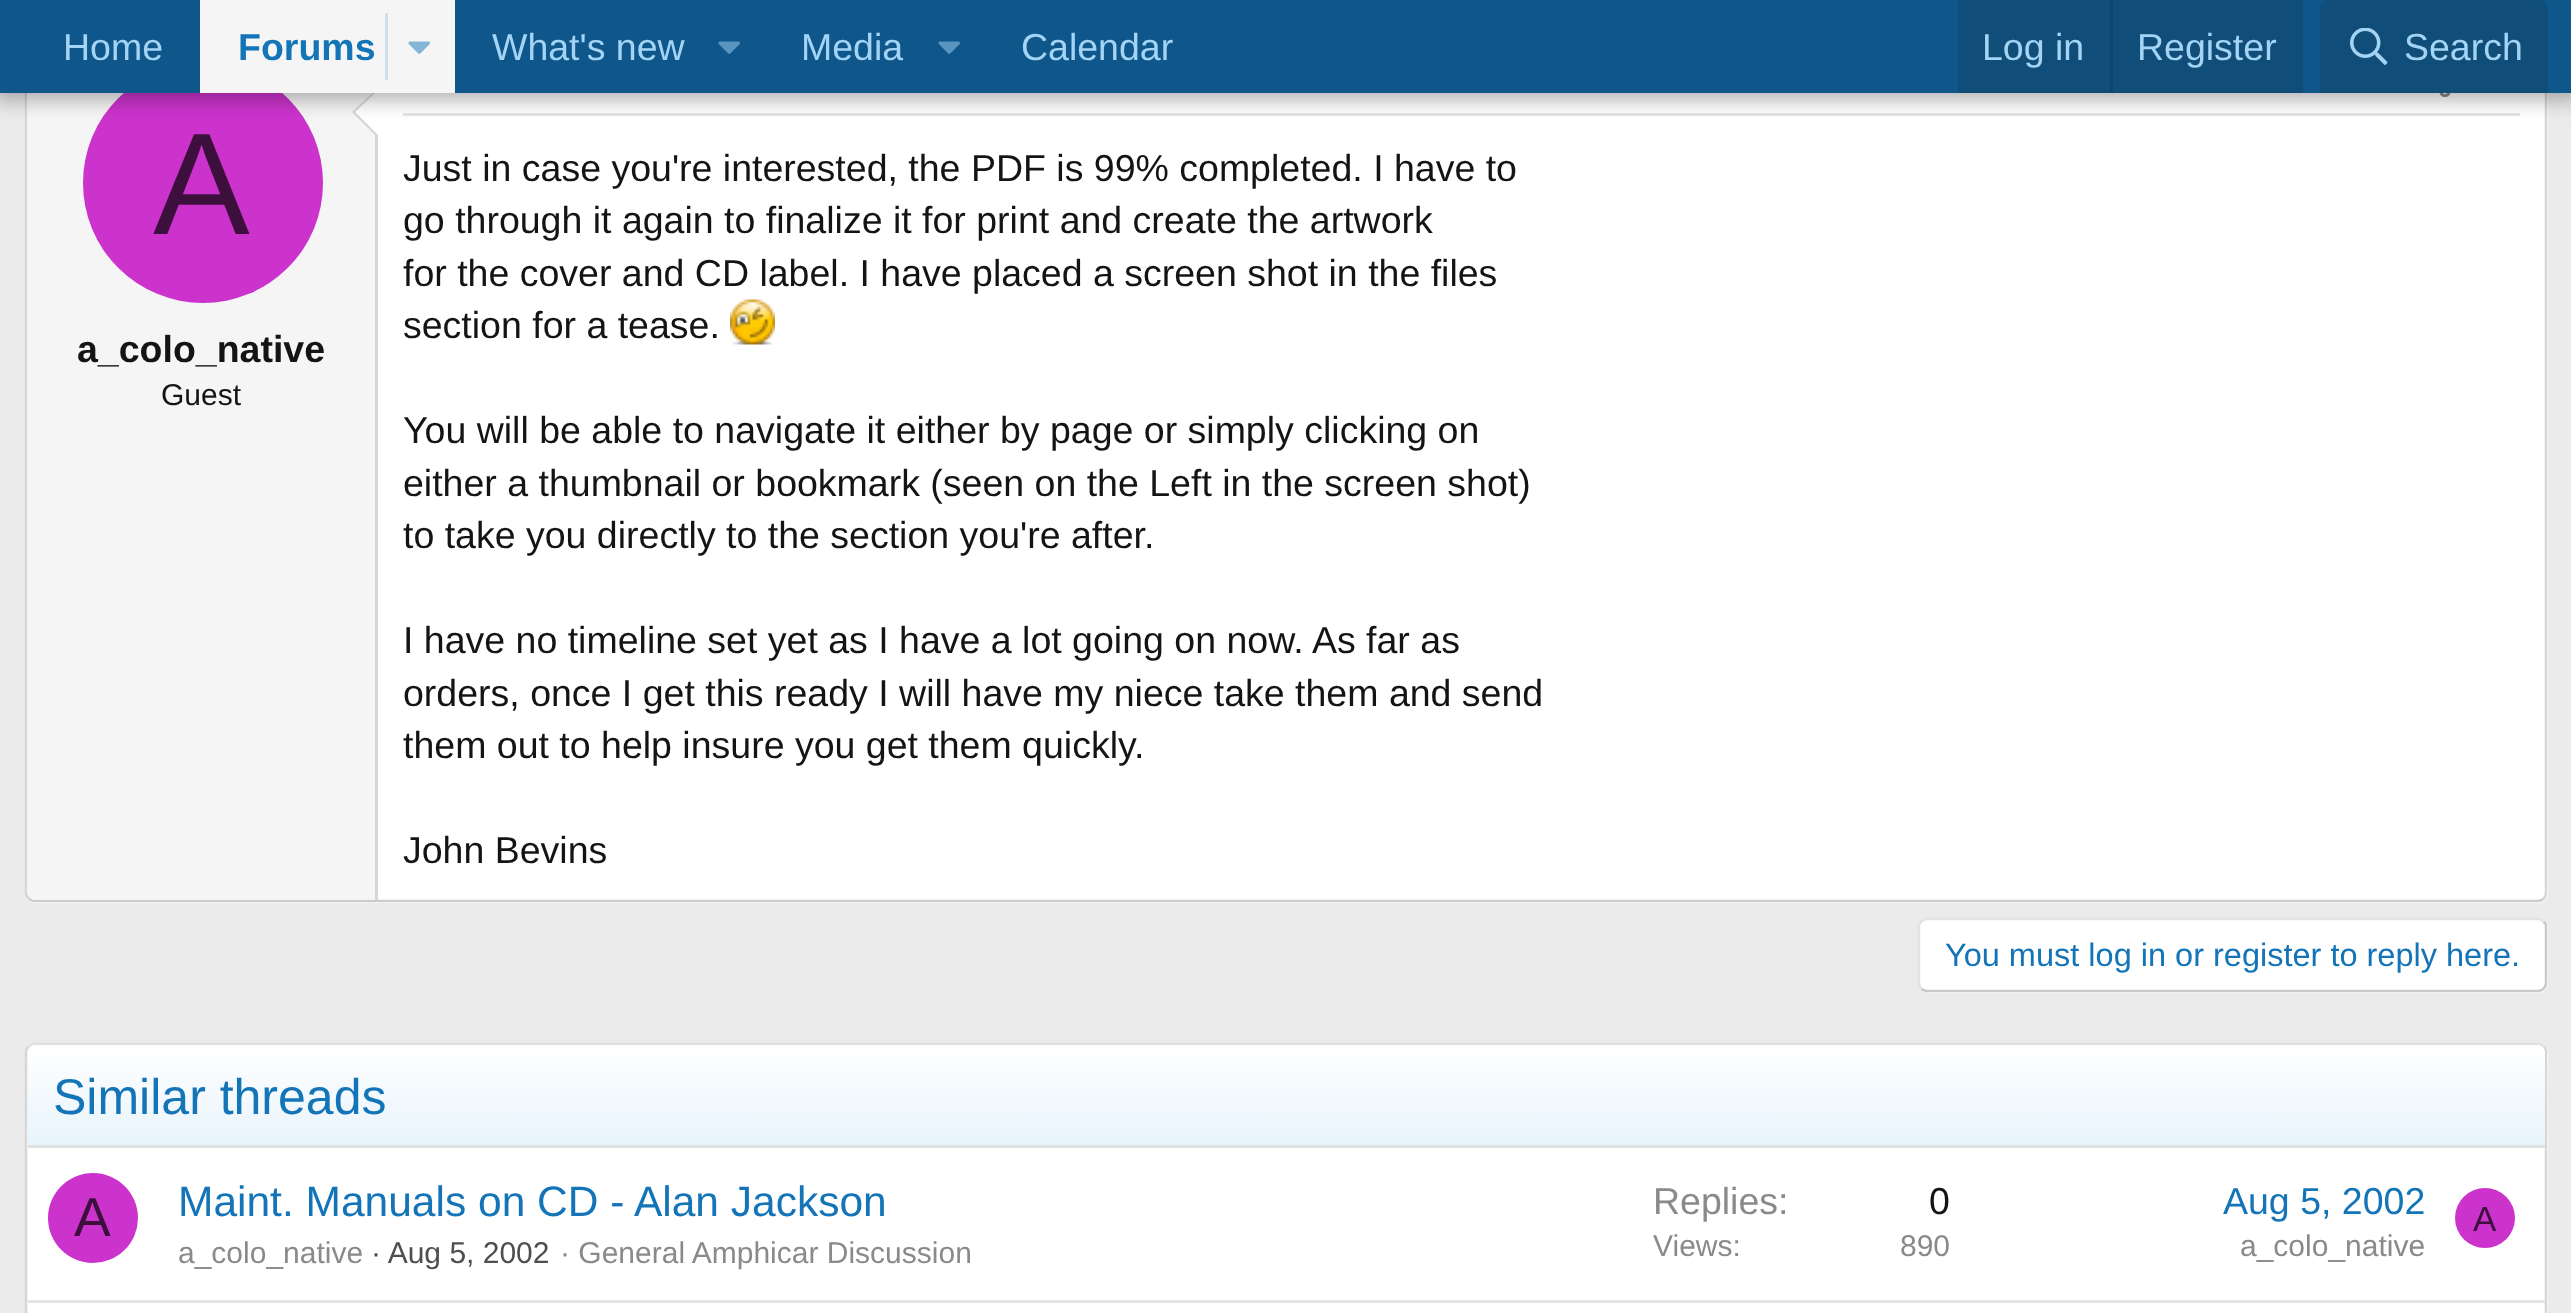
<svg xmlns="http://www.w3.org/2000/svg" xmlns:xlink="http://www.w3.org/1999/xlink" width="2571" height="1313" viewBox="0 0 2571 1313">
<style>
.cls-1{font:37.5px Liberation Sans;fill:#a3d4f5}
.cls-2{font:bold 37.5px Liberation Sans;fill:#1474b8}
.cls-3{font:145px Liberation Sans;fill:#3d0f3d}
.cls-4{font:bold 37.5px Liberation Sans;fill:#141414}
.cls-5{font:30px Liberation Sans;fill:#141414}
.cls-6{font:37.5px Liberation Sans;fill:#141414}
.cls-7{font:32.5px Liberation Sans;fill:#1474b8}
.cls-8{font:50px Liberation Sans;fill:#1474b8}
.cls-9{font:55px Liberation Sans;fill:#3d0f3d}
.cls-10{font:42.5px Liberation Sans;fill:#1474b8}
.cls-11{font:30px Liberation Sans;fill:#8a8a8a}
.cls-12{font:30px Liberation Sans;fill:#4f4f4f}
.cls-13{font:37.5px Liberation Sans;fill:#8a8a8a}
.cls-14{font:37.5px Liberation Sans;fill:#1474b8}
.cls-15{font:35px Liberation Sans;fill:#3d0f3d}
</style>
<defs>
<linearGradient id="g1" gradientUnits="userSpaceOnUse" x1="1286" y1="1145" x2="1286" y2="1045"><stop offset="0" stop-color="#e8f4fc"/><stop offset="1" stop-color="#ffffff"/></linearGradient>
</defs>
<rect width="100%" height="100%" fill="#ebebeb"/>
<rect fill="#ffffff" x="25" y="35" width="2523" height="868" rx="10"/>
<path fill="none" stroke="#d6d6d6" stroke-width="2.5" d="M2543.5 39C2545.5 40.5 2546 42.5 2546 45V892.5C2546 895 2545.5 897 2543.5 898.5"/>
<path fill="none" stroke="#cccccc" stroke-width="2.5" d="M2543.5 898.5C2542 900.5 2540 901 2537.5 901H35C32.5 901 30.5 900.5 29 898.5"/>
<path fill="none" stroke="#d6d6d6" stroke-width="2.5" d="M29 898.5C27 897 26 895 26 892.5V45C26 42.5 27 40.5 29 39"/>
<path fill="#f5f5f5" d="M36 38H378V900H36C31.5 900 28 896.5 28 892V46C28 41.5 31.5 38 36 38Z"/>
<rect fill="#d6d6d6" x="375" y="135" width="3" height="765"/>
<path fill="#d6d6d6" d="M378 88V138L352 112Z"/>
<path fill="#ffffff" d="M378 90V135L355 112Z"/>
<circle fill="#cc33cc" cx="203" cy="183" r="120"/>
<rect fill="#e5e5e5" x="403" y="113" width="2117" height="3"/>
<image xlink:href="image3.png" x="2439" y="93" width="12" height="4"/>
<rect fill="#000000" fill-opacity="0.3" filter="blur(10px)" x="-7" y="-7" width="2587" height="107"/>
<rect fill="#0f578a" x="0" y="0" width="2571" height="93"/>
<rect fill="#f5f5f5" x="200" y="0" width="255" height="93"/>
<rect fill="#cedfeb" x="385" y="13" width="3" height="67"/>
<image xlink:href="image0.png" x="408" y="41" width="22" height="13"/>
<image xlink:href="image1.png" x="718" y="41" width="22" height="13"/>
<image xlink:href="image1.png" x="938" y="41" width="22" height="13"/>
<rect fill="#104d78" x="1958" y="0" width="345" height="93"/>
<rect fill="#114469" x="2110" y="0" width="3" height="93"/>
<path fill="#104d78" d="M2330 0H2538C2543.5 0 2548 4.5 2548 10V93H2320V10C2320 4.5 2324.5 0 2330 0Z"/>
<image xlink:href="image2.png" x="2350" y="28" width="38" height="37"/>
<image xlink:href="image4.png" x="730" y="299" width="45" height="46"/>
<rect fill="#ffffff" x="1918" y="918" width="630" height="75" rx="10"/>
<path fill="none" stroke="#c9c9c9" stroke-width="2.5" d="M2543.5 921.5C2545.5 923 2546 925 2546 927.5V982.5C2546 985 2545.5 987 2543.5 988.5C2542 990.5 2540 991 2537.5 991H1927.5C1925 991 1923 990.5 1921.5 988.5"/>
<path fill="none" stroke="#e3e3e3" stroke-width="2.5" d="M1921.5 988.5C1919.5 987 1919 985 1919 982.5V927.5C1919 925 1919.5 923 1921.5 921.5C1923 919.5 1925 919 1927.5 919H2537.5C2540 919 2542 919.5 2543.5 921.5"/>
<rect fill="#ffffff" x="25" y="1043" width="2523" height="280" rx="10"/>
<path fill="none" stroke="#e0e0e0" stroke-width="2.5" d="M29 1046.5C30.5 1044.5 32.5 1044 35 1044H2537.5C2540 1044 2542 1044.5 2543.5 1046.5"/>
<path fill="none" stroke="#d6d6d6" stroke-width="2.5" d="M2543.5 1046.5C2545.5 1048 2546 1050 2546 1052.5V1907.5C2546 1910 2545.5 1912 2543.5 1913.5"/>
<path fill="none" stroke="#d6d6d6" stroke-width="2.5" d="M29 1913.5C27 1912 26 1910 26 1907.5V1052.5C26 1050 27 1048 29 1046.5"/>
<path fill="url(#g1)" d="M36 1045H2537C2541.5 1045 2545 1048.5 2545 1053V1145H28V1053C28 1048.5 31.5 1045 36 1045Z"/>
<rect fill="#e0e0e0" x="28" y="1145" width="2517" height="3"/>
<circle fill="#cc33cc" cx="93" cy="1218" r="45"/>
<circle fill="#cc33cc" cx="2485" cy="1218" r="30"/>
<rect fill="#e5e5e5" x="28" y="1300" width="2517" height="3"/>
<text class="cls-1" x="63" y="60">Home</text>
<text class="cls-2" x="238" y="60">Forums</text>
<text class="cls-1" x="492" y="60">What's new</text>
<text class="cls-1" x="801" y="60">Media</text>
<text class="cls-1" x="1021" y="60">Calendar</text>
<text class="cls-1" x="1982" y="60">Log in</text>
<text class="cls-1" x="2137" y="60">Register</text>
<text class="cls-1" x="2404" y="60">Search</text>
<text class="cls-3" x="153" y="234">A</text>
<text class="cls-4" x="77" y="362">a_colo_native</text>
<text class="cls-5" x="161" y="405">Guest</text>
<text class="cls-6"><tspan x="403" y="181">Just in case you're interested, the PDF is 99% completed. I have to</tspan><tspan x="403" y="233">go through it again to finalize it for print and create the artwork</tspan><tspan x="403" y="286">for the cover and CD label. I have placed a screen shot in the files</tspan><tspan x="403" y="338">section for a tease.</tspan></text>
<text class="cls-6"><tspan x="403" y="443">You will be able to navigate it either by page or simply clicking on</tspan><tspan x="403" y="496">either a thumbnail or bookmark (seen on the Left in the screen shot)</tspan><tspan x="403" y="548">to take you directly to the section you're after.</tspan></text>
<text class="cls-6"><tspan x="403" y="653">I have no timeline set yet as I have a lot going on now. As far as</tspan><tspan x="403" y="706">orders, once I get this ready I will have my niece take them and send</tspan><tspan x="403" y="758">them out to help insure you get them quickly.</tspan></text>
<text class="cls-6" x="403" y="863">John Bevins</text>
<text class="cls-7" x="1945" y="966">You must log in or register to reply here.</text>
<text class="cls-8" x="53" y="1114">Similar threads</text>
<text class="cls-9" x="74" y="1236">A</text>
<text class="cls-10" x="178" y="1216">Maint. Manuals on CD - Alan Jackson</text>
<text class="cls-11" x="178" y="1263">a_colo_native</text>
<text class="cls-12" x="371" y="1263">· Aug 5, 2002</text>
<text class="cls-11" x="560" y="1263">· General Amphicar Discussion</text>
<text class="cls-13" x="1653" y="1214">Replies:</text>
<text class="cls-6" x="1929" y="1214">0</text>
<text class="cls-11" x="1653" y="1256">Views:</text>
<text class="cls-11" x="1900" y="1256">890</text>
<text class="cls-14" x="2223" y="1214">Aug 5, 2002</text>
<text class="cls-11" x="2240" y="1256">a_colo_native</text>
<text class="cls-15" x="2473" y="1231">A</text>
</svg>
